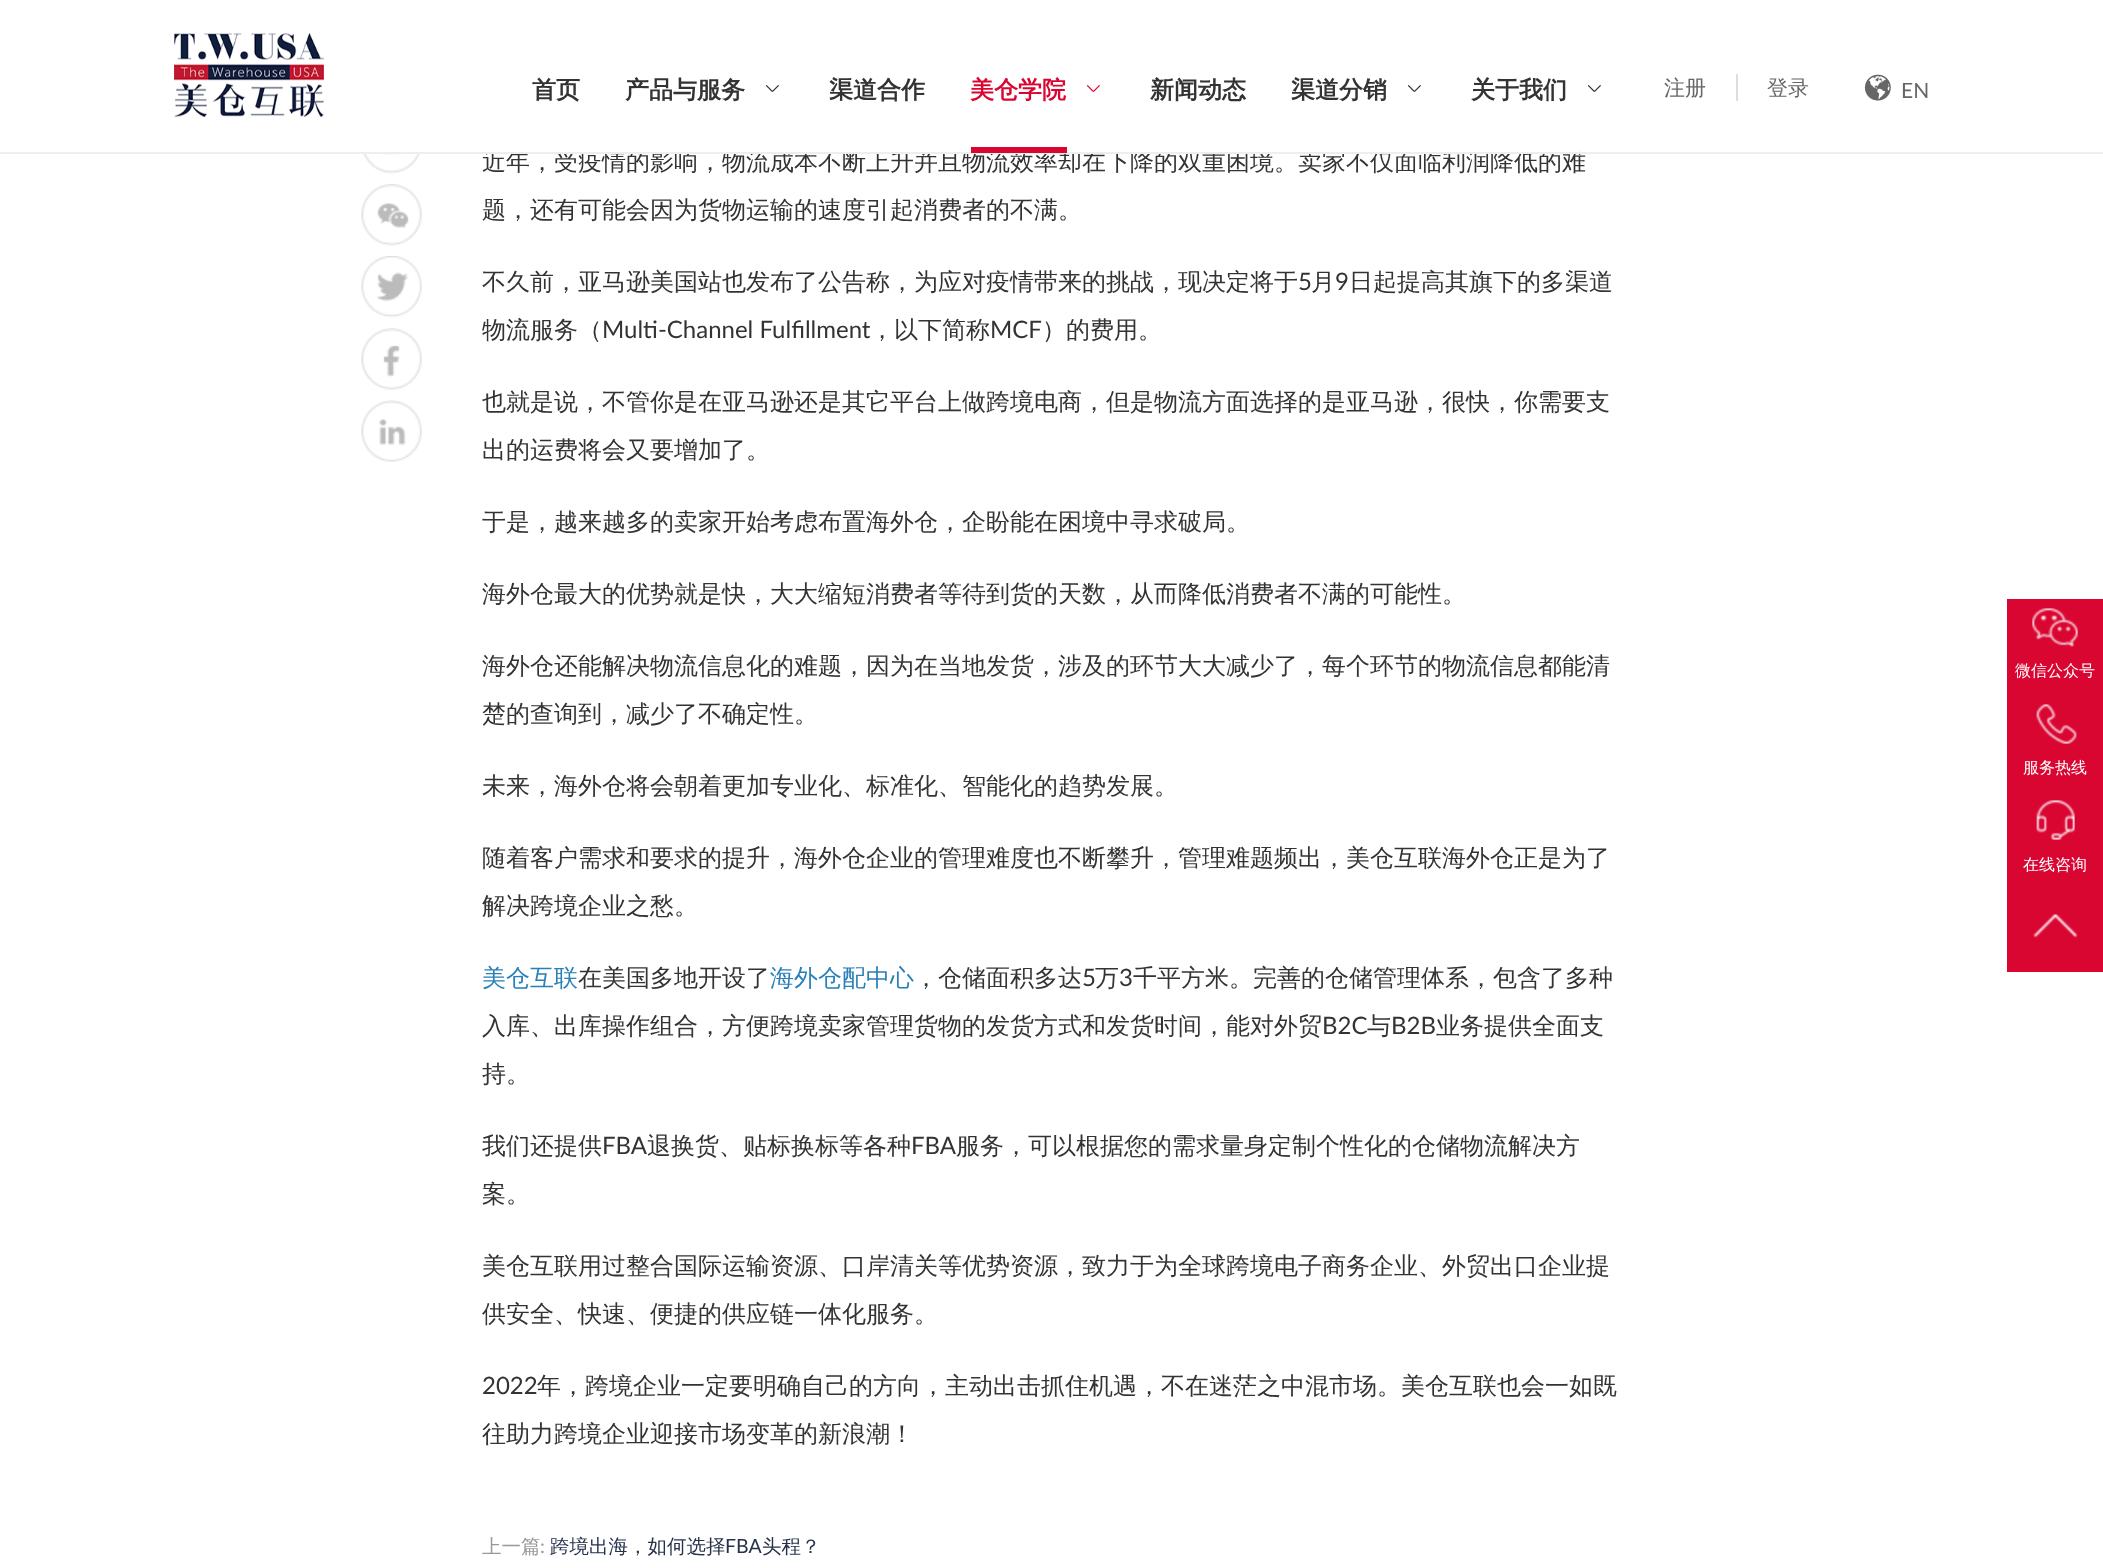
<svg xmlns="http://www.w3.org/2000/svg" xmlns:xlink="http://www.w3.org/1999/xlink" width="2103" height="1568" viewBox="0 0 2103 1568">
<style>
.cls-1{font:bold 24px WenQuanYi Zen Hei;fill:#333333}
.cls-2{font:bold 24px WenQuanYi Zen Hei;fill:#da0632}
.cls-3{font:500 21px WenQuanYi Zen Hei;fill:#666666}
.cls-4{font:21px Lato;fill:#666666}
.cls-5{font:500 24px WenQuanYi Zen Hei;fill:#333333}
.cls-6{font:24px Lato;fill:#333333}
.cls-7{font:500 24px WenQuanYi Zen Hei;fill:#2980b9}
.cls-8{font:500 19.5px WenQuanYi Zen Hei;fill:#999999}
.cls-9{font:19.5px Lato;fill:#999999}
.cls-10{font:500 19.5px WenQuanYi Zen Hei;fill:#26324a}
.cls-11{font:19.5px Lato;fill:#26324a}
.cls-12{font:500 16px WenQuanYi Zen Hei;fill:#ffffff}
</style>
<rect width="100%" height="100%" fill="#ffffff"/>
<image xlink:href="image0.png" x="174" y="33" width="150" height="84"/>
<image xlink:href="image1.png" x="765" y="85" width="14" height="7"/>
<image xlink:href="image2.png" x="1086" y="85" width="14" height="7"/>
<image xlink:href="image1.png" x="1407" y="85" width="14" height="7"/>
<image xlink:href="image1.png" x="1587" y="85" width="14" height="7"/>
<rect fill="#dddddd" x="1736" y="74" width="2" height="27"/>
<image xlink:href="image3.png" x="1864" y="74" width="27" height="27"/>
<image xlink:href="image4.png" x="362" y="154" width="59" height="20"/>
<image xlink:href="image5.png" x="361" y="184" width="61" height="62"/>
<image xlink:href="image6.png" x="361" y="256" width="61" height="62"/>
<image xlink:href="image7.png" x="361" y="328" width="61" height="62"/>
<image xlink:href="image8.png" x="361" y="400" width="61" height="62"/>
<rect fill="#da0632" x="2007" y="599" width="96" height="373"/>
<image xlink:href="image9.png" x="2032" y="608" width="46" height="39"/>
<image xlink:href="image10.png" x="2036" y="704" width="41" height="40"/>
<image xlink:href="image11.png" x="2036" y="800" width="39" height="40"/>
<image xlink:href="image12.png" x="2033" y="914" width="45" height="24"/>
<text class="cls-1" x="532" y="98">首页</text>
<text class="cls-1" x="625" y="98">产品与服务</text>
<text class="cls-1" x="829" y="98">渠道合作</text>
<text class="cls-2" x="970" y="98">美仓学院</text>
<text class="cls-1" x="1150" y="98">新闻动态</text>
<text class="cls-1" x="1291" y="98">渠道分销</text>
<text class="cls-1" x="1471" y="98">关于我们</text>
<text class="cls-3" x="1664" y="95">注册</text>
<text class="cls-3" x="1767" y="95">登录</text>
<text class="cls-4" x="1901" y="98">EN</text>
<text class="cls-5" x="482" y="170">近年，受疫情的影响，物流成本不断上升并且物流效率却在下降的双重困境。卖家不仅面临利润降低的难</text>
<rect fill="#eeeeee" x="0" y="152" width="2103" height="2"/>
<rect fill="#ffffff" x="483" y="149" width="1096" height="3"/>
<rect fill="#da0632" x="971" y="147" width="96" height="6"/>
<text class="cls-5" x="482" y="218">题，还有可能会因为货物运输的速度引起消费者的不满。</text>
<text class="cls-5" x="482" y="290">不久前，亚马逊美国站也发布了公告称，为应对疫情带来的挑战，现决定将于</text>
<text class="cls-6" x="1298" y="290">5</text>
<text class="cls-5" x="1311" y="290">月</text>
<text class="cls-6" x="1335" y="290">9</text>
<text class="cls-5" x="1349" y="290">日起提高其旗下的多渠道</text>
<text class="cls-5" x="482" y="338">物流服务（</text>
<text class="cls-6" x="602" y="338">Multi-Channel Fulfillment</text>
<text class="cls-5" x="870" y="338">，以下简称</text>
<text class="cls-6" x="990" y="338">MCF</text>
<text class="cls-5" x="1042" y="338">）的费用。</text>
<text class="cls-5" x="482" y="410">也就是说，不管你是在亚马逊还是其它平台上做跨境电商，但是物流方面选择的是亚马逊，很快，你需要支</text>
<text class="cls-5" x="482" y="458">出的运费将会又要增加了。</text>
<text class="cls-5" x="482" y="530">于是，越来越多的卖家开始考虑布置海外仓，企盼能在困境中寻求破局。</text>
<text class="cls-5" x="482" y="602">海外仓最大的优势就是快，大大缩短消费者等待到货的天数，从而降低消费者不满的可能性。</text>
<text class="cls-5" x="482" y="674">海外仓还能解决物流信息化的难题，因为在当地发货，涉及的环节大大减少了，每个环节的物流信息都能清</text>
<text class="cls-5" x="482" y="722">楚的查询到，减少了不确定性。</text>
<text class="cls-5" x="482" y="794">未来，海外仓将会朝着更加专业化、标准化、智能化的趋势发展。</text>
<text class="cls-5" x="482" y="866">随着客户需求和要求的提升，海外仓企业的管理难度也不断攀升，管理难题频出，美仓互联海外仓正是为了</text>
<text class="cls-5" x="482" y="914">解决跨境企业之愁。</text>
<text class="cls-7" x="482" y="986">美仓互联</text>
<text class="cls-5" x="578" y="986">在美国多地开设了</text>
<text class="cls-7" x="770" y="986">海外仓配中心</text>
<text class="cls-5" x="914" y="986">，仓储面积多达</text>
<text class="cls-6" x="1082" y="986">5</text>
<text class="cls-5" x="1095" y="986">万</text>
<text class="cls-6" x="1119" y="986">3</text>
<text class="cls-5" x="1133" y="986">千平方米。完善的仓储管理体系，包含了多种</text>
<text class="cls-5" x="482" y="1034">入库、出库操作组合，方便跨境卖家管理货物的发货方式和发货时间，能对外贸</text>
<text class="cls-6" x="1322" y="1034">B2C</text>
<text class="cls-5" x="1367" y="1034">与</text>
<text class="cls-6" x="1391" y="1034">B2B</text>
<text class="cls-5" x="1436" y="1034">业务提供全面支</text>
<text class="cls-5" x="482" y="1082">持。</text>
<text class="cls-5" x="482" y="1154">我们还提供</text>
<text class="cls-6" x="602" y="1154">FBA</text>
<text class="cls-5" x="647" y="1154">退换货、贴标换标等各种</text>
<text class="cls-6" x="911" y="1154">FBA</text>
<text class="cls-5" x="956" y="1154">服务，可以根据您的需求量身定制个性化的仓储物流解决方</text>
<text class="cls-5" x="482" y="1202">案。</text>
<text class="cls-5" x="482" y="1274">美仓互联用过整合国际运输资源、口岸清关等优势资源，致力于为全球跨境电子商务企业、外贸出口企业提</text>
<text class="cls-5" x="482" y="1322">供安全、快速、便捷的供应链一体化服务。</text>
<text class="cls-6" x="482" y="1394">2022</text>
<text class="cls-5" x="537" y="1394">年，跨境企业一定要明确自己的方向，主动出击抓住机遇，不在迷茫之中混市场。美仓互联也会一如既</text>
<text class="cls-5" x="482" y="1442">往助力跨境企业迎接市场变革的新浪潮！</text>
<text class="cls-8" x="482" y="1553">上一篇</text>
<text class="cls-9" x="540" y="1553">:</text>
<text class="cls-10" x="550" y="1553">跨境出海，如何选择</text>
<text class="cls-11" x="725" y="1553">FBA</text>
<text class="cls-10" x="762" y="1553">头程？</text>
<text class="cls-12" x="2015" y="676">微信公众号</text>
<text class="cls-12" x="2023" y="773">服务热线</text>
<text class="cls-12" x="2023" y="870">在线咨询</text>
</svg>
